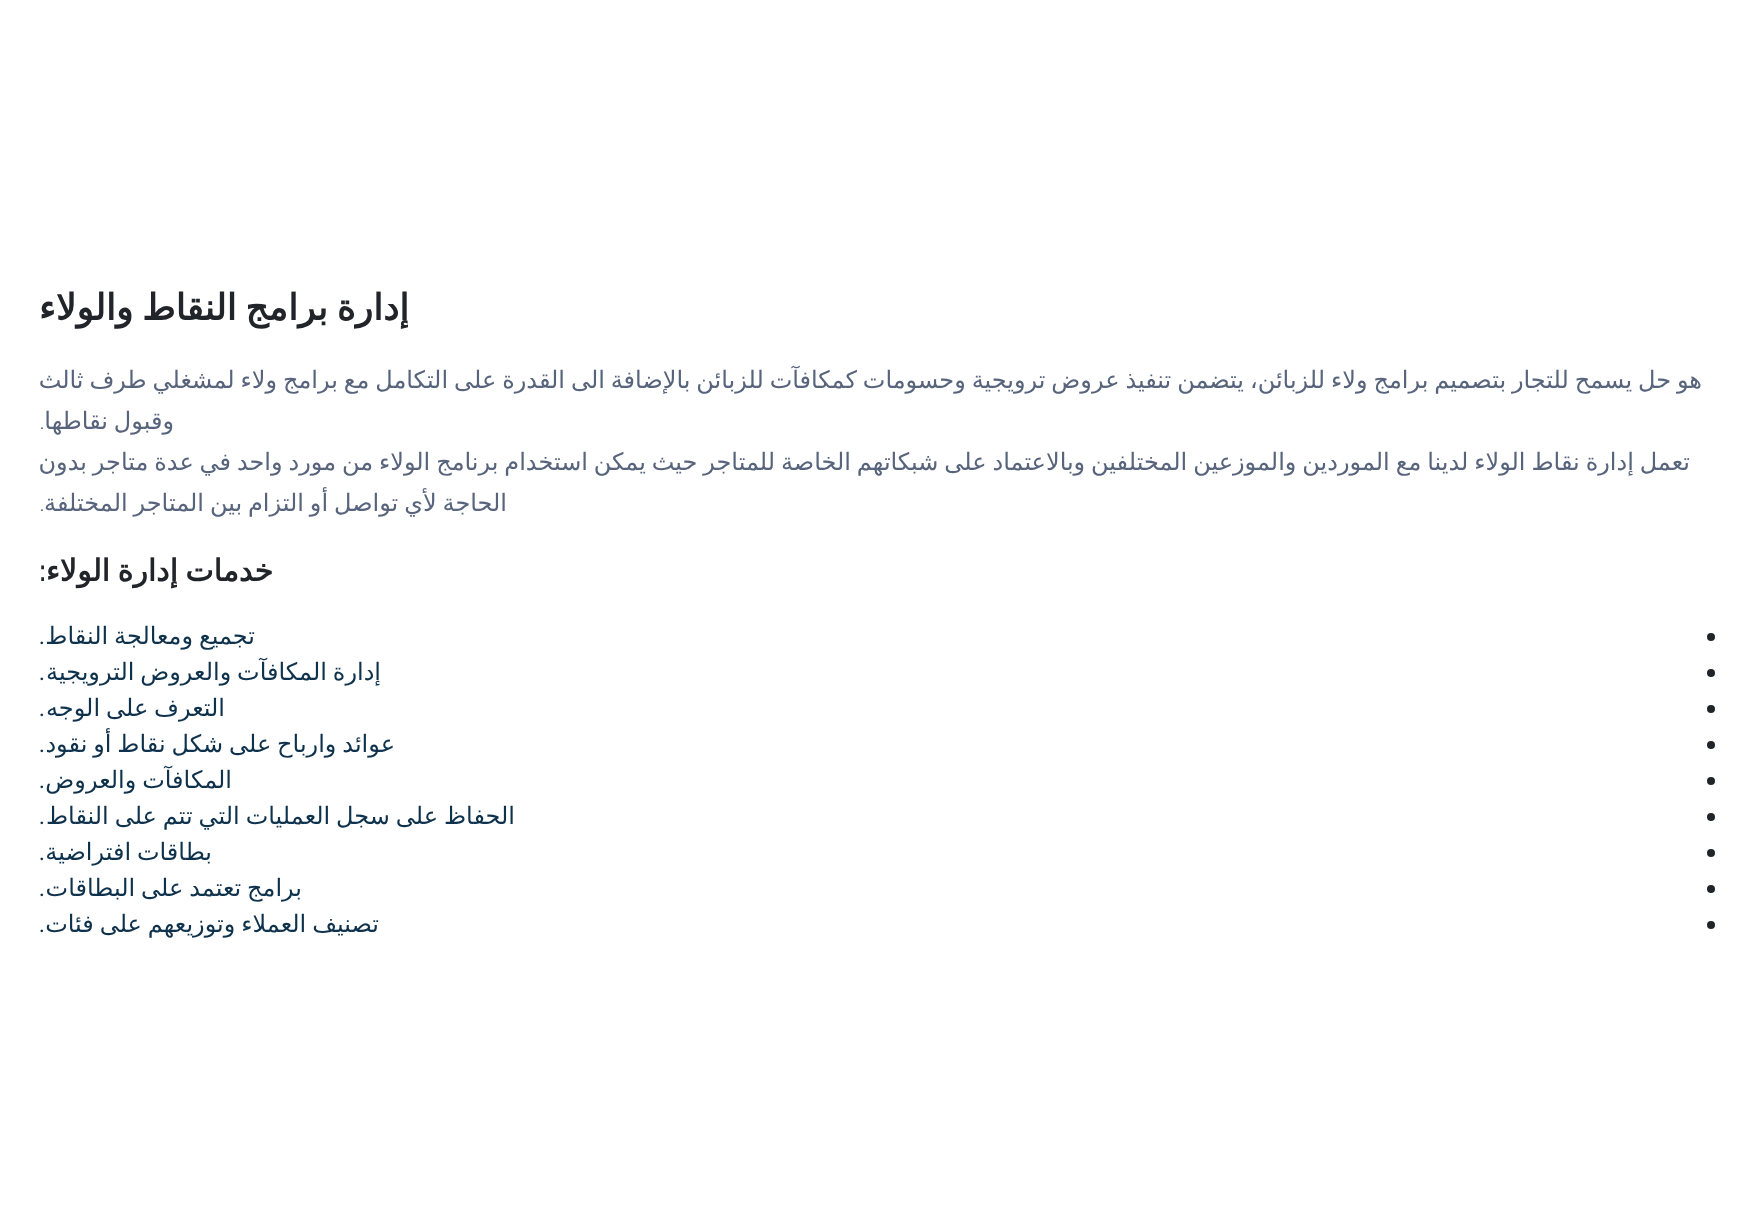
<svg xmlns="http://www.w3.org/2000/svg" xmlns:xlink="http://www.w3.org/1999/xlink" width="1749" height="1219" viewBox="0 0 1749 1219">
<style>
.cls-1{font:bold 36px DejaVu Sans;direction:rtl;fill:#212529}
.cls-2{font:24px DejaVu Sans;direction:rtl;fill:#57647c}
.cls-3{font:300 24px Roboto;direction:rtl;fill:#57647c}
.cls-4{font:bold 30px DejaVu Sans;direction:rtl;fill:#212529}
.cls-5{font:600 30px Raleway;direction:rtl;fill:#212529}
.cls-6{font:24px DejaVu Sans;direction:rtl;fill:#0e314c}
.cls-7{font:24px Roboto;direction:rtl;fill:#0e314c}
</style>
<rect width="100%" height="100%" fill="#ffffff"/>
<circle fill="#212529" cx="1711" cy="637" r="4"/>
<circle fill="#212529" cx="1711" cy="673" r="4"/>
<circle fill="#212529" cx="1711" cy="709" r="4"/>
<circle fill="#212529" cx="1711" cy="745" r="4"/>
<circle fill="#212529" cx="1711" cy="781" r="4"/>
<circle fill="#212529" cx="1711" cy="817" r="4"/>
<circle fill="#212529" cx="1711" cy="853" r="4"/>
<circle fill="#212529" cx="1711" cy="889" r="4"/>
<circle fill="#212529" cx="1711" cy="925" r="4"/>
<text class="cls-1" x="409" y="320" word-spacing="-2.5">إدارة برامج النقاط والولاء</text>
<text class="cls-2" x="1702" y="388" word-spacing="-1.75">هو حل يسمح للتجار بتصميم برامج ولاء للزبائن، يتضمن تنفيذ عروض ترويجية وحسومات كمكافآت للزبائن بالإضافة الى القدرة على التكامل مع برامج ولاء لمشغلي طرف ثالث</text>
<text class="cls-2" x="174" y="429" word-spacing="-1.75">وقبول نقاطها</text>
<text class="cls-3" x="45" y="429">.</text>
<text class="cls-2" x="1690" y="470" word-spacing="-1.75">تعمل إدارة نقاط الولاء لدينا مع الموردين والموزعين المختلفين وبالاعتماد على شبكاتهم الخاصة للمتاجر حيث يمكن استخدام برنامج الولاء من مورد واحد في عدة متاجر بدون</text>
<text class="cls-2" x="507" y="511" word-spacing="-1.75">الحاجة لأي تواصل أو التزام بين المتاجر المختلفة</text>
<text class="cls-3" x="45" y="511">.</text>
<text class="cls-4" x="273" y="581" word-spacing="-2">خدمات إدارة الولاء</text>
<text class="cls-5" x="46" y="581">:</text>
<text class="cls-6" x="255" y="644" word-spacing="-1.75">تجميع ومعالجة النقاط</text>
<text class="cls-7" x="45" y="644">.</text>
<text class="cls-6" x="381" y="680" word-spacing="-1.75">إدارة المكافآت والعروض الترويجية</text>
<text class="cls-7" x="45" y="680">.</text>
<text class="cls-6" x="225" y="716" word-spacing="-1.75">التعرف على الوجه</text>
<text class="cls-7" x="45" y="716">.</text>
<text class="cls-6" x="395" y="752" word-spacing="-1.75">عوائد وارباح على شكل نقاط أو نقود</text>
<text class="cls-7" x="45" y="752">.</text>
<text class="cls-6" x="232" y="788" word-spacing="-1.75">المكافآت والعروض</text>
<text class="cls-7" x="45" y="788">.</text>
<text class="cls-6" x="515" y="824" word-spacing="-1.75">الحفاظ على سجل العمليات التي تتم على النقاط</text>
<text class="cls-7" x="45" y="824">.</text>
<text class="cls-6" x="212" y="860" word-spacing="-1.75">بطاقات افتراضية</text>
<text class="cls-7" x="45" y="860">.</text>
<text class="cls-6" x="302" y="896" word-spacing="-1.75">برامج تعتمد على البطاقات</text>
<text class="cls-7" x="45" y="896">.</text>
<text class="cls-6" x="379" y="932" word-spacing="-1.75">تصنيف العملاء وتوزيعهم على فئات</text>
<text class="cls-7" x="45" y="932">.</text>
</svg>
